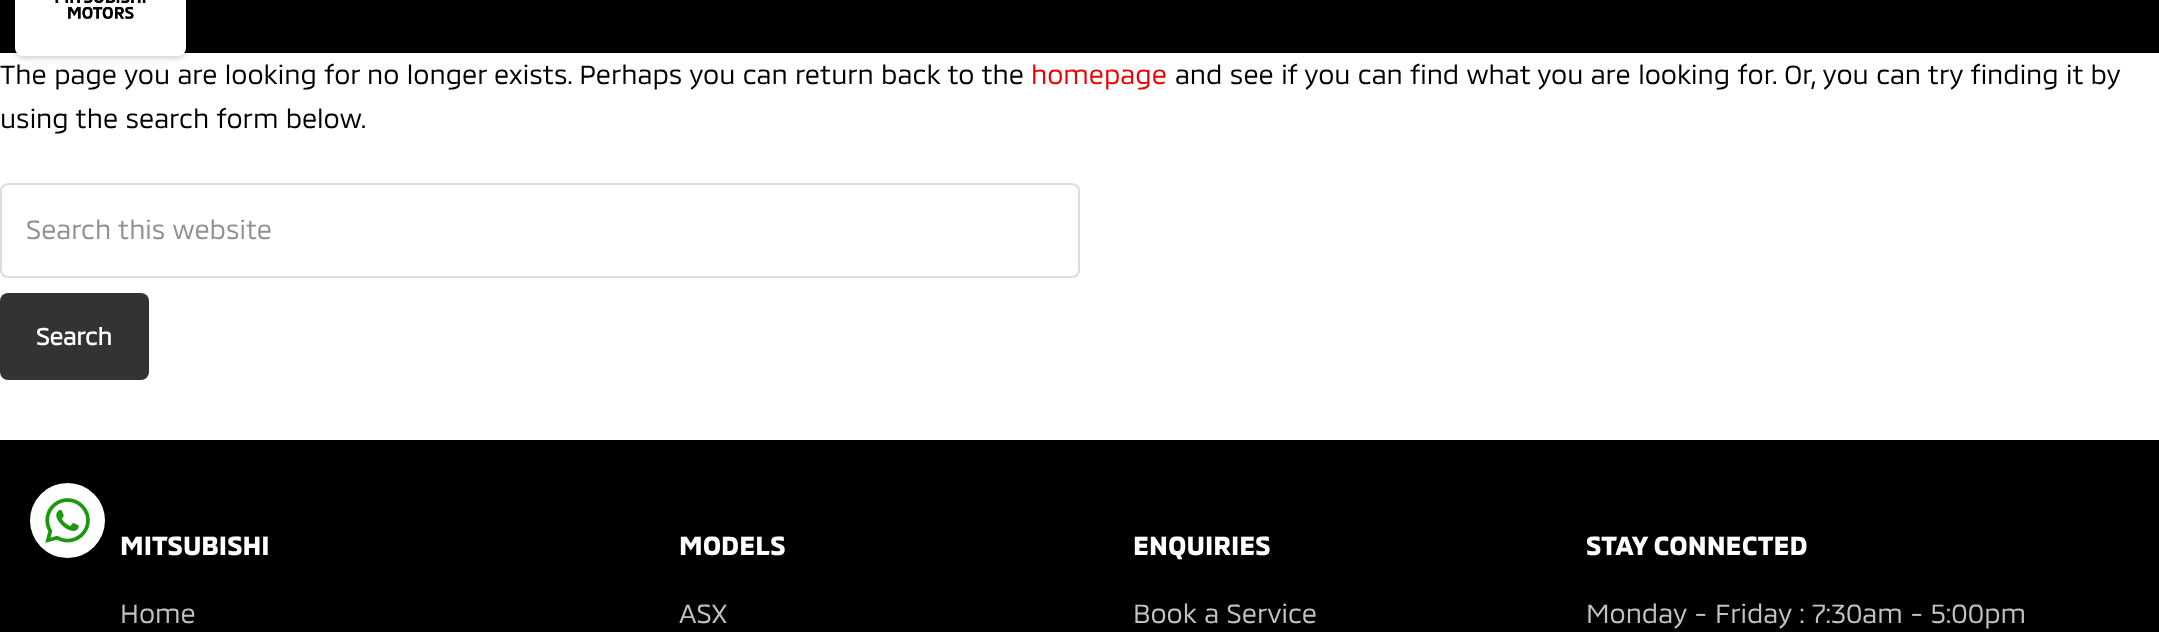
<svg xmlns="http://www.w3.org/2000/svg" xmlns:xlink="http://www.w3.org/1999/xlink" width="2159" height="632" viewBox="0 0 2159 632">
<style>
.cls-1{font:27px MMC;fill:#000000}
.cls-2{font:27px MMC;fill:#ed0000}
.cls-3{font:27px MMC;fill:#919191}
.cls-4{font:bold 24px MMC;fill:#ffffff}
.cls-5{font:bold 27px 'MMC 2';fill:#ffffff}
.cls-6{font:27px MMC;fill:#bfc2c4}
</style>
<rect width="100%" height="100%" fill="#000000"/>
<rect fill="#ffffff" x="0" y="53" width="2159" height="387"/>
<rect fill="#000000" fill-opacity="0.25" filter="blur(3px)" x="15" y="-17" width="171" height="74" rx="8"/>
<rect fill="#ffffff" x="15" y="-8" width="171" height="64" rx="8"/>
<image xlink:href="image0.png" x="55" y="0" width="91" height="19"/>
<rect fill="none" stroke="#dddddd" stroke-width="2" x="1" y="184" width="1078" height="93" rx="7"/>
<rect fill="#333333" x="0" y="293" width="149" height="87" rx="8"/>
<circle fill="#ffffff" cx="67.5" cy="520.5" r="37.5"/>
<image xlink:href="image1.png" x="45" y="498" width="45" height="45"/>
<text class="cls-1" x="0" y="84">The page you are looking for no longer exists. Perhaps you can return back to the</text>
<text class="cls-2" x="1031" y="84">homepage</text>
<text class="cls-1" x="1175" y="84">and see if you can find what you are looking for. Or, you can try finding it by</text>
<text class="cls-1" x="0" y="128">using the search form below.</text>
<text class="cls-3" x="26" y="239">Search this website</text>
<text class="cls-4" x="36" y="345">Search</text>
<text class="cls-5" x="120" y="555">MITSUBISHI</text>
<text class="cls-6" x="120" y="623">Home</text>
<text class="cls-5" x="679" y="555">MODELS</text>
<text class="cls-6" x="679" y="623">ASX</text>
<text class="cls-5" x="1133" y="555">ENQUIRIES</text>
<text class="cls-6" x="1133" y="623">Book a Service</text>
<text class="cls-5" x="1586" y="555">STAY CONNECTED</text>
<text class="cls-6" x="1586" y="623">Monday - Friday : 7:30am - 5:00pm</text>
</svg>
